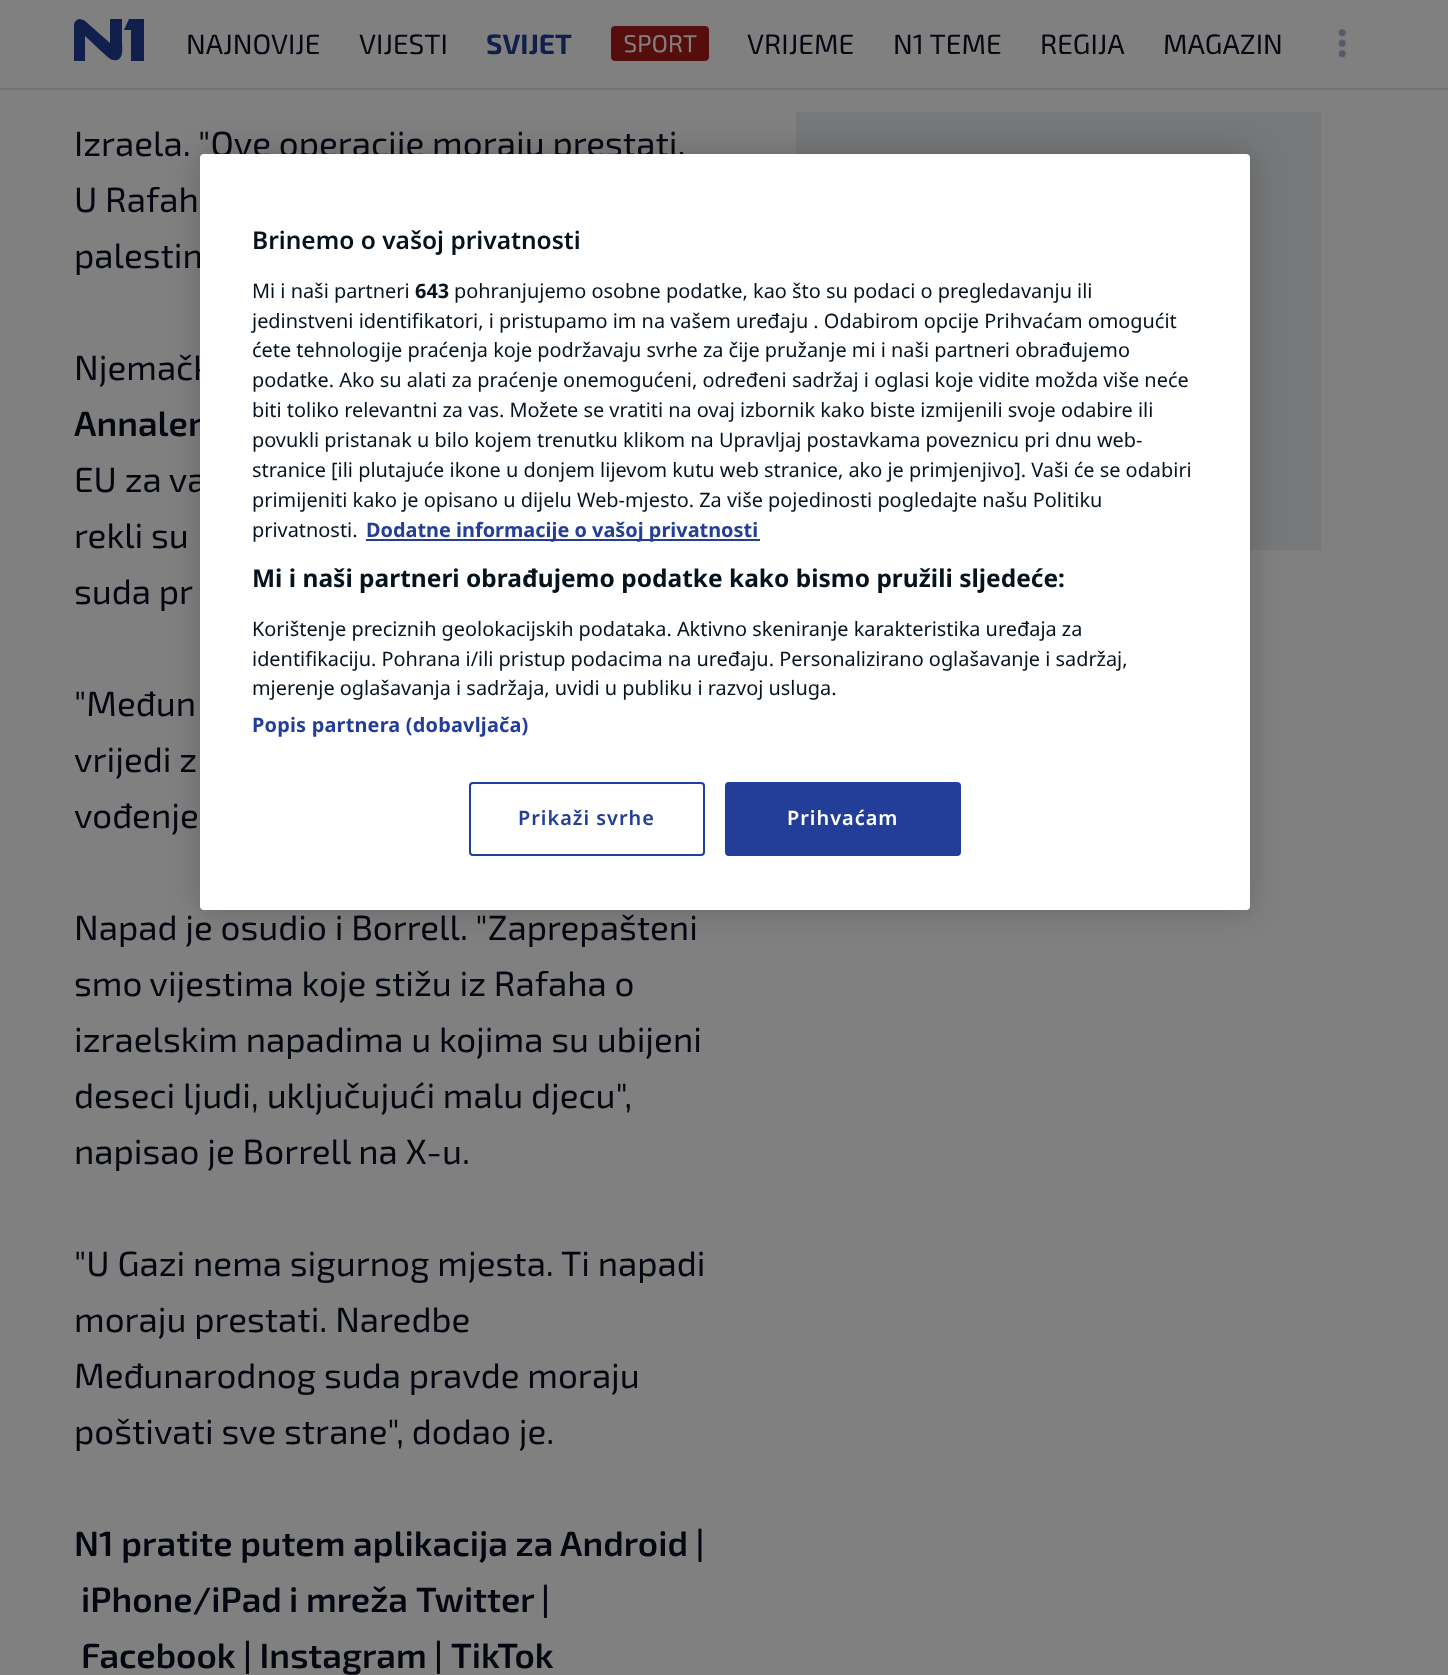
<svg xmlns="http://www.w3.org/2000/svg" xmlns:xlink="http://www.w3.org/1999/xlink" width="1448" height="1675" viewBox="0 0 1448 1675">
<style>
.cls-1{font:28px 'Exo 2';fill:#040610}
.cls-2{font:bold 28px 'Exo 2';fill:#111f4d}
.cls-3{font:35px 'Exo 2';fill:#040610}
.cls-4{font:600 35px 'Exo 2';fill:#040610}
.cls-5{font:600 24.5px Noto Sans;fill:#05131e}
.cls-6{font:19.9px Noto Sans;fill:#05131e}
.cls-7{font:bold 19.9px Noto Sans;fill:#05131e}
.cls-8{font:bold 19.9px Noto Sans;fill:#223e99}
.cls-9{font:bold 24.5px Noto Sans;fill:#05131e}
.cls-10{font:bold 19.9px Noto Sans;letter-spacing:0.2px;fill:#223e99}
.cls-11{font:600 19.9px Noto Sans;letter-spacing:1px;fill:#223e99}
.cls-12{font:600 19.9px Noto Sans;letter-spacing:1px;fill:#ffffff}
</style>
<defs>
<clipPath id="clip1"><rect x="74" y="19" width="70" height="42"/></clipPath>
</defs>
<rect width="100%" height="100%" fill="#808080"/>
<rect fill="#6f7477" x="0" y="88" width="1448" height="2"/>
<g clip-path="url(#clip1)">
<path fill="#111f4d" fill-rule="evenodd" d="M85 21L110 43V19H122V42C122 46 124 58 117 60C111 62 106 55 101 51L85 36V61H74V38C74 33 71 21 79 19C81 19 84 20 85 21ZM124 30L129 19H144V61H131V30Z"/>
</g>
<image xlink:href="image0.png" x="611" y="26" width="98" height="35"/>
<image xlink:href="image1.png" x="1338" y="29" width="9" height="29"/>
<rect fill="#777879" x="796" y="112" width="525" height="438"/>
<rect fill="#000000" fill-opacity="0.2" filter="blur(16px)" x="200" y="154" width="1050" height="756" rx="4"/>
<text class="cls-1" x="186" y="54">NAJNOVIJE</text>
<text class="cls-1" x="359" y="54">VIJESTI</text>
<text class="cls-2" x="486" y="54">SVIJET</text>
<text class="cls-1" x="747" y="54">VRIJEME</text>
<text class="cls-1" x="893" y="54">N1 TEME</text>
<text class="cls-1" x="1040" y="54">REGIJA</text>
<text class="cls-1" x="1163" y="54">MAGAZIN</text>
<text class="cls-3"><tspan x="74" y="156">Izraela. "Ove operacije moraju prestati.</tspan><tspan x="74" y="212">U Rafah</tspan><tspan x="74" y="268">palestin</tspan></text>
<text class="cls-3" x="74" y="380">Njemačk</text>
<text class="cls-4" x="74" y="436">Annalen</text>
<text class="cls-3"><tspan x="74" y="492">EU za va</tspan><tspan x="74" y="548">rekli su</tspan><tspan x="74" y="604">suda pr</tspan></text>
<text class="cls-3"><tspan x="74" y="716">"Međun</tspan><tspan x="74" y="772">vrijedi z</tspan><tspan x="74" y="828">vođenje</tspan></text>
<text class="cls-3"><tspan x="74" y="940">Napad je osudio i Borrell. "Zaprepašteni</tspan><tspan x="74" y="996">smo vijestima koje stižu iz Rafaha o</tspan><tspan x="74" y="1052">izraelskim napadima u kojima su ubijeni</tspan><tspan x="74" y="1108">deseci ljudi, uključujući malu djecu",</tspan><tspan x="74" y="1164">napisao je Borrell na X-u.</tspan></text>
<text class="cls-3"><tspan x="74" y="1276">"U Gazi nema sigurnog mjesta. Ti napadi</tspan><tspan x="74" y="1332">moraju prestati. Naredbe</tspan><tspan x="74" y="1388">Međunarodnog suda pravde moraju</tspan><tspan x="74" y="1444">poštivati sve strane", dodao je.</tspan></text>
<text class="cls-4" x="74" y="1556">N1 pratite putem aplikacija za</text>
<text class="cls-4" x="560" y="1556">Android |</text>
<text class="cls-4" x="81" y="1612">iPhone/iPad</text>
<text class="cls-4" x="289" y="1612">i mreža</text>
<text class="cls-4" x="416" y="1612">Twitter</text>
<text class="cls-4" x="541" y="1612">|</text>
<text class="cls-4" x="81" y="1668">Facebook | Instagram</text>
<text class="cls-4" x="434" y="1668">|</text>
<text class="cls-4" x="451" y="1668">TikTok</text>
<rect fill="#ffffff" x="200" y="154" width="1050" height="756" rx="4"/>
<text class="cls-5" x="252" y="249">Brinemo o vašoj privatnosti</text>
<text class="cls-6" x="252" y="298">Mi i naši partneri</text>
<text class="cls-7" x="415" y="298">643</text>
<text class="cls-6" x="454" y="298">pohranjujemo osobne podatke, kao što su podaci o pregledavanju ili</text>
<text class="cls-6"><tspan x="252" y="328">jedinstveni identifikatori, i pristupamo im na vašem uređaju . Odabirom opcije Prihvaćam omogućit</tspan><tspan x="252" y="357">ćete tehnologije praćenja koje podržavaju svrhe za čije pružanje mi i naši partneri obrađujemo</tspan><tspan x="252" y="387">podatke. Ako su alati za praćenje onemogućeni, određeni sadržaj i oglasi koje vidite možda više neće</tspan><tspan x="252" y="417">biti toliko relevantni za vas. Možete se vratiti na ovaj izbornik kako biste izmijenili svoje odabire ili</tspan><tspan x="252" y="447">povukli pristanak u bilo kojem trenutku klikom na Upravljaj postavkama poveznicu pri dnu web-</tspan><tspan x="252" y="477">stranice [ili plutajuće ikone u donjem lijevom kutu web stranice, ako je primjenjivo]. Vaši će se odabiri</tspan><tspan x="252" y="507">primijeniti kako je opisano u dijelu Web-mjesto. Za više pojedinosti pogledajte našu Politiku</tspan><tspan x="252" y="537">privatnosti.</tspan></text>
<rect fill="#223e99" x="366" y="539" width="394" height="2"/>
<text class="cls-8" x="366" y="537">Dodatne informacije o vašoj privatnosti</text>
<text class="cls-9" x="252" y="587">Mi i naši partneri obrađujemo podatke kako bismo pružili sljedeće:</text>
<text class="cls-6"><tspan x="252" y="636">Korištenje preciznih geolokacijskih podataka. Aktivno skeniranje karakteristika uređaja za</tspan><tspan x="252" y="666">identifikaciju. Pohrana i/ili pristup podacima na uređaju. Personalizirano oglašavanje i sadržaj,</tspan><tspan x="252" y="695">mjerenje oglašavanja i sadržaja, uvidi u publiku i razvoj usluga.</tspan></text>
<text class="cls-10" x="252" y="732">Popis partnera (dobavljača)</text>
<rect fill="none" stroke="#223e99" stroke-width="2" x="470" y="783" width="234" height="72" rx="3"/>
<text class="cls-11" x="518" y="825">Prikaži svrhe</text>
<rect fill="#223e99" stroke="#223e99" stroke-width="2" x="726" y="783" width="234" height="72" rx="3"/>
<text class="cls-12" x="787" y="825">Prihvaćam</text>
</svg>
